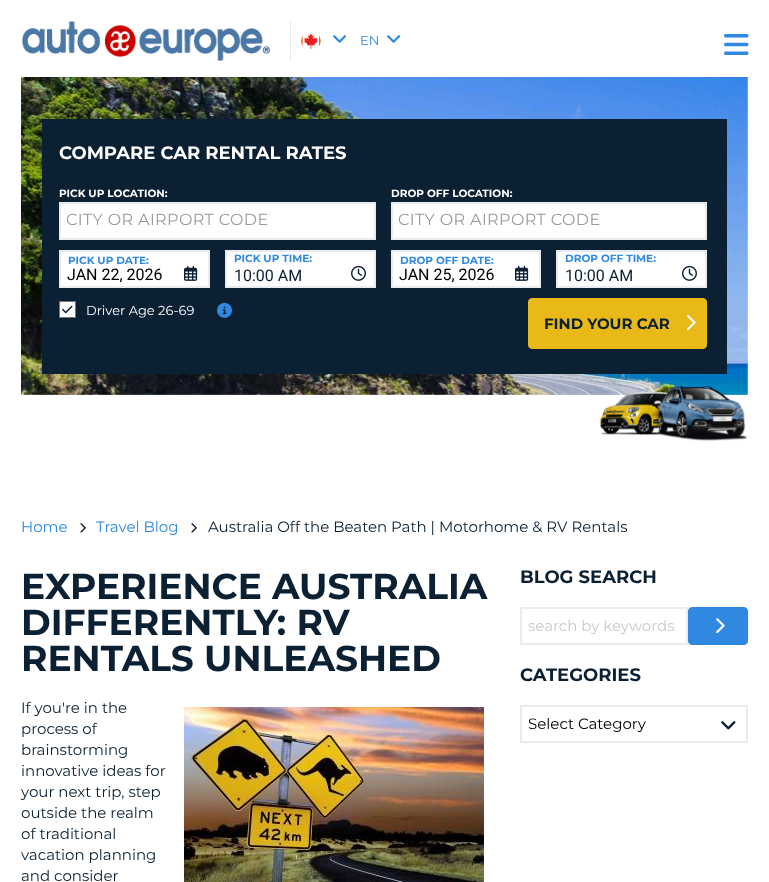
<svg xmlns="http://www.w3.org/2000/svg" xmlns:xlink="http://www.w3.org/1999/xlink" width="769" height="882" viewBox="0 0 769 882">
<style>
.cls-1{font:13px Montserrat;fill:#3089e0}
.cls-2{font:bold 18px Montserrat;fill:#ffffff}
.cls-3{font:bold 10.5px Montserrat;fill:#ffffff}
.cls-4{font:16px Montserrat;letter-spacing:0.4px;fill:#969b9f}
.cls-5{font:bold 10.5px Montserrat;fill:#3089e0}
.cls-6{font:16px Roboto;fill:#000000}
.cls-7{font:16px Roboto;fill:#0b2033}
.cls-8{font:13px Montserrat;fill:#ffffff}
.cls-9{font:bold 15px Montserrat;fill:#0b2033}
.cls-10{font:15px Montserrat;fill:#3089e0}
.cls-11{font:15px Montserrat;fill:#0b2033}
.cls-12{font:bold 36px Montserrat;fill:#0b2033}
.cls-13{font:bold 18px Montserrat;fill:#0b2033}
.cls-14{font:15px Montserrat;fill:#c8cbce}
.cls-15{font:15px Montserrat;fill:#000000}
</style>
<rect width="100%" height="100%" fill="#ffffff"/>
<rect fill="#e8ecf0" x="290" y="21" width="1" height="40"/>
<image xlink:href="image0.png" x="21" y="21" width="249" height="40"/>
<image xlink:href="image1.png" x="301" y="32" width="20" height="19"/>
<image xlink:href="image2.png" x="333" y="35" width="14" height="8"/>
<image xlink:href="image2.png" x="387" y="35" width="14" height="8"/>
<image xlink:href="image3.png" x="724" y="34" width="25" height="21"/>
<image xlink:href="image4.png" x="21" y="77" width="727" height="318"/>
<rect fill="#0b2033" x="42" y="119" width="685" height="255"/>
<rect fill="#ffffff" stroke="#e8ecf0" stroke-width="2" x="60" y="203" width="315" height="36"/>
<rect fill="#ffffff" stroke="#e8ecf0" stroke-width="2" x="392" y="203" width="314" height="36"/>
<rect fill="#ffffff" stroke="#e8ecf0" stroke-width="2" x="60" y="251" width="149" height="36"/>
<image xlink:href="image5.png" x="184" y="265" width="14" height="16"/>
<rect fill="#ffffff" stroke="#e8ecf0" stroke-width="2" x="226" y="251" width="149" height="36"/>
<image xlink:href="image6.png" x="351" y="265" width="15" height="16"/>
<rect fill="#ffffff" stroke="#e8ecf0" stroke-width="2" x="392" y="251" width="148" height="36"/>
<image xlink:href="image5.png" x="515" y="265" width="14" height="16"/>
<rect fill="#ffffff" stroke="#e8ecf0" stroke-width="2" x="557" y="251" width="149" height="36"/>
<image xlink:href="image6.png" x="682" y="265" width="15" height="16"/>
<rect fill="#ffffff" stroke="#6f7579" x="59.5" y="301.5" width="16" height="16"/>
<image xlink:href="image7.png" x="62" y="305" width="11" height="9"/>
<image xlink:href="image8.png" x="217" y="302" width="15" height="16"/>
<rect fill="#e8b917" stroke="#e8b917" x="528.5" y="298.5" width="178" height="50" rx="3.5"/>
<image xlink:href="image9.png" x="687" y="315" width="9" height="15"/>
<image xlink:href="image10.png" x="599" y="382" width="149" height="59"/>
<image xlink:href="image11.png" x="80" y="523" width="6" height="10"/>
<image xlink:href="image11.png" x="191" y="523" width="6" height="10"/>
<image xlink:href="image12.png" x="184" y="707" width="300" height="175"/>
<rect fill="none" stroke="#e8ecf0" stroke-width="2" x="521" y="608" width="166" height="36"/>
<rect fill="#3089e0" stroke="#3089e0" x="688.5" y="607.5" width="59" height="37" rx="3.5"/>
<image xlink:href="image13.png" x="716" y="618" width="9" height="15"/>
<rect fill="none" stroke="#e8ecf0" stroke-width="2" x="521" y="706" width="226" height="36"/>
<image xlink:href="image14.png" x="721" y="721" width="15" height="9"/>
<text class="cls-1" x="360" y="45">EN</text>
<text class="cls-2" x="59" y="159">COMPARE CAR RENTAL RATES</text>
<text class="cls-3" x="59" y="197">PICK UP LOCATION:</text>
<text class="cls-4" x="66" y="225">CITY OR AIRPORT CODE</text>
<text class="cls-3" x="391" y="197">DROP OFF LOCATION:</text>
<text class="cls-4" x="398" y="225">CITY OR AIRPORT CODE</text>
<text class="cls-5" x="68" y="264">PICK UP DATE:</text>
<text class="cls-6" x="67" y="280">JAN 22, 2026</text>
<text class="cls-5" x="234" y="262">PICK UP TIME:</text>
<text class="cls-7" x="234" y="281">10:00 AM</text>
<text class="cls-5" x="400" y="264">DROP OFF DATE:</text>
<text class="cls-6" x="399" y="280">JAN 25, 2026</text>
<text class="cls-5" x="565" y="262">DROP OFF TIME:</text>
<text class="cls-7" x="565" y="281">10:00 AM</text>
<text class="cls-8" x="86" y="315">Driver Age 26-69</text>
<text class="cls-9" x="544" y="329">FIND YOUR CAR</text>
<text class="cls-10" x="21" y="532">Home</text>
<text class="cls-10" x="96" y="532">Travel Blog</text>
<text class="cls-11" x="208" y="532">Australia Off the Beaten Path | Motorhome &amp; RV Rentals</text>
<text class="cls-12"><tspan x="21" y="599">EXPERIENCE AUSTRALIA</tspan><tspan x="21" y="635">DIFFERENTLY: RV</tspan><tspan x="21" y="671">RENTALS UNLEASHED</tspan></text>
<text class="cls-11"><tspan x="21" y="713">If you're in the</tspan><tspan x="21" y="734">process of</tspan><tspan x="21" y="755">brainstorming</tspan><tspan x="21" y="776">innovative ideas for</tspan><tspan x="21" y="797">your next trip, step</tspan><tspan x="21" y="818">outside the realm</tspan><tspan x="21" y="839">of traditional</tspan><tspan x="21" y="860">vacation planning</tspan><tspan x="21" y="881">and consider</tspan></text>
<text class="cls-13" x="520" y="583">BLOG SEARCH</text>
<text class="cls-14" x="528" y="631">search by keywords</text>
<text class="cls-13" x="520" y="681">CATEGORIES</text>
<text class="cls-15" x="528" y="729">Select Category</text>
</svg>
